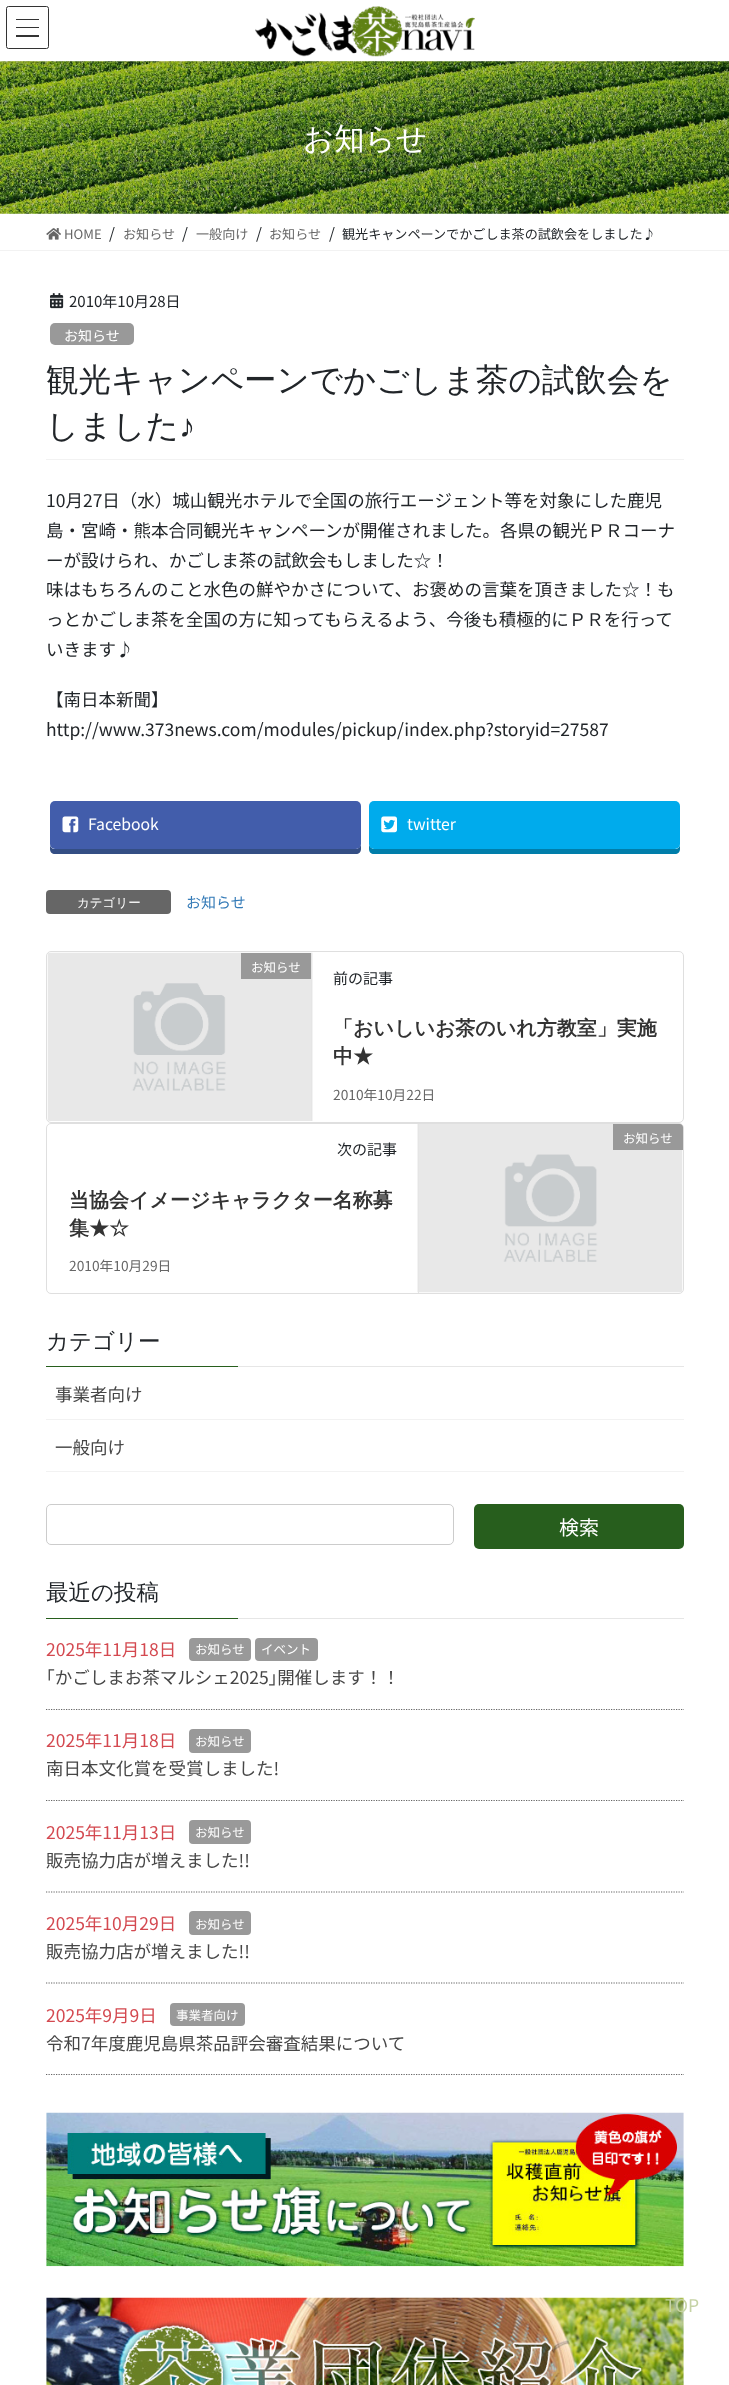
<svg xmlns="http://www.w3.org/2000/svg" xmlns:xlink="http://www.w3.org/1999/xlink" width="729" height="2385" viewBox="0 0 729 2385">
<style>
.cls-1{font:500 30.5px WenQuanYi Zen Hei;fill:#ffffff}
.cls-2{font:13.1px Noto Sans JP;fill:#666666}
.cls-3{font:15px Noto Sans JP;fill:#212529}
.cls-4{font:13.1px Noto Sans JP;fill:#212529}
.cls-5{font:14px Noto Sans JP;fill:#ffffff}
.cls-6{font:500 32.5px WenQuanYi Zen Hei;fill:#212529}
.cls-7{font:32.5px Liberation Serif;fill:#212529}
.cls-8{font:17.5px Noto Sans JP;fill:#212529}
.cls-9{font:15.75px Noto Sans JP;fill:#ffffff}
.cls-10{font:500 12.5px WenQuanYi Zen Hei;fill:#ffffff}
.cls-11{font:15px Noto Sans JP;fill:#337ab7}
.cls-12{font:12.5px Noto Sans JP;fill:#ffffff}
.cls-13{font:bold 20px WenQuanYi Zen Hei;fill:#333333}
.cls-14{font:13.75px Noto Sans JP;fill:#666666}
.cls-15{font:500 22.5px WenQuanYi Zen Hei;fill:#212529}
.cls-16{font:17.5px Noto Sans JP;fill:#464646}
.cls-17{font:20px Noto Sans JP;fill:#ffffff}
.cls-18{font:17.5px Noto Sans JP;fill:#d44950}
.cls-19{font:17.5px Noto Sans JP;fill:#c6d3a6}
</style>
<defs>
<clipPath id="clip1"><rect x="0" y="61" width="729" height="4"/></clipPath>
</defs>
<rect width="100%" height="100%" fill="#ffffff"/>
<image xlink:href="image1.png" x="0" y="61" width="729" height="153"/>
<g clip-path="url(#clip1)">
<rect fill="#000000" fill-opacity="0.1" filter="blur(2px)" x="0" y="1" width="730" height="62"/>
</g>
<image xlink:href="image0.png" x="255" y="6" width="220" height="51"/>
<rect fill="#333333" x="16" y="19" width="23" height="1"/>
<rect fill="#333333" x="16" y="27" width="23" height="1"/>
<rect fill="#333333" x="16" y="35" width="23" height="2"/>
<rect fill="none" stroke="#333333" x="6.5" y="6.5" width="42" height="42" rx="2"/>
<rect fill="#f2f2f2" x="0" y="250" width="729" height="1"/>
<image xlink:href="image2.png" x="46" y="228" width="15" height="12"/>
<rect fill="#f2f2f2" x="46" y="459" width="638" height="1"/>
<image xlink:href="image3.png" x="50" y="293" width="14" height="16"/>
<rect fill="#999999" x="50" y="323" width="84" height="22" rx="5"/>
<path fill="#344e84" d="M50 844V849C50 852 52 854 55 854H356C359 854 361 852 361 849V845C360 847 358 849 356 849H55C52 849 50 847 50 844Z"/>
<rect fill="#425dab" x="50" y="801" width="311" height="48" rx="5"/>
<image xlink:href="image4.png" x="62" y="816" width="17" height="17"/>
<path fill="#007eaa" d="M369 845V849C369 852 371 854 374 854H675C678 854 680 852 680 849V844C680 847 678 849 675 849H374C372 849 370 847 369 845Z"/>
<rect fill="#00abec" x="369" y="801" width="311" height="48" rx="5"/>
<image xlink:href="image5.png" x="381" y="816" width="16" height="17"/>
<rect fill="#666666" x="46" y="890" width="125" height="24" rx="4"/>
<rect fill="none" stroke="#dfdfdf" x="46.5" y="951.5" width="637" height="171" rx="4.5"/>
<image xlink:href="image6.png" x="47" y="952" width="266" height="169"/>
<rect fill="#e5e5e5" x="311" y="953" width="1" height="168"/>
<rect fill="#999999" x="241" y="953" width="70" height="26"/>
<rect fill="none" stroke="#dfdfdf" x="46.5" y="1123.5" width="637" height="170" rx="4.5"/>
<image xlink:href="image7.png" x="417" y="1124" width="266" height="169"/>
<rect fill="#e5e5e5" x="418" y="1124" width="1" height="169"/>
<path fill="#999999" d="M613 1124H680C681.5 1124 683 1125.5 683 1127V1150H613Z"/>
<rect fill="#e6e6e6" x="238" y="1366" width="446" height="1"/>
<rect fill="#275e1d" x="46" y="1366" width="192" height="1"/>
<rect fill="#f2f2f2" x="46" y="1419" width="638" height="1"/>
<rect fill="#f2f2f2" x="46" y="1471" width="638" height="1"/>
<rect fill="none" stroke="#cccccc" x="46.5" y="1504.5" width="407" height="40" rx="4.5"/>
<rect fill="#275e1d" x="474" y="1504" width="210" height="45" rx="5"/>
<rect fill="#e6e6e6" x="238" y="1618" width="446" height="1"/>
<rect fill="#275e1d" x="46" y="1618" width="192" height="1"/>
<path fill="none" stroke="#666666" stroke-width="1.2" stroke-dasharray="1.25 1.25" d="M46 1709.5H684"/>
<rect fill="#999999" x="189" y="1638" width="62" height="23" rx="4"/>
<rect fill="#999999" x="255" y="1638" width="63" height="23" rx="4"/>
<path fill="none" stroke="#666666" stroke-width="1.2" stroke-dasharray="1.25 1.25" d="M46 1800.5H684"/>
<rect fill="#999999" x="189" y="1729" width="62" height="24" rx="4"/>
<path fill="none" stroke="#666666" stroke-width="1.2" stroke-dasharray="1.25 1.25" d="M46 1892H684"/>
<rect fill="#999999" x="189" y="1820" width="62" height="24" rx="4"/>
<path fill="none" stroke="#666666" stroke-width="1.2" stroke-dasharray="1.25 1.25" d="M46 1983H684"/>
<rect fill="#999999" x="189" y="1911" width="62" height="24" rx="4"/>
<path fill="none" stroke="#666666" stroke-width="1.2" stroke-dasharray="1.25 1.25" d="M46 2074.5H684"/>
<rect fill="#999999" x="170" y="2003" width="75" height="23" rx="4"/>
<image xlink:href="image8.png" x="46" y="2112" width="638" height="155"/>
<image xlink:href="image9.png" x="46" y="2297" width="638" height="88"/>
<text class="cls-1" x="303" y="149">お知らせ</text>
<text class="cls-2" x="64" y="239">HOME</text>
<text class="cls-3" x="109" y="239">/</text>
<text class="cls-2" x="123" y="239">お知らせ</text>
<text class="cls-3" x="182" y="239">/</text>
<text class="cls-2" x="196" y="239">一般向け</text>
<text class="cls-3" x="256" y="239">/</text>
<text class="cls-2" x="269" y="239">お知らせ</text>
<text class="cls-3" x="329" y="239">/</text>
<text class="cls-4" x="342" y="239">観光キャンペーンでかごしま茶の試飲会をしました♪</text>
<text class="cls-3" x="69" y="307">2010年10月28日</text>
<text class="cls-5" x="64" y="341">お知らせ</text>
<text class="cls-6"><tspan x="46" y="391">観光キャンペーンでかごしま茶の試飲会を</tspan><tspan x="46" y="437">しました</tspan></text>
<text class="cls-7" x="179" y="437">♪</text>
<text class="cls-8"><tspan x="46" y="507">10月27日（水）城山観光ホテルで全国の旅行エージェント等を対象にした鹿児</tspan><tspan x="46" y="537">島・宮崎・熊本合同観光キャンペーンが開催されました。各県の観光ＰＲコーナ</tspan><tspan x="46" y="567">ーが設けられ、かごしま茶の試飲会もしました☆！</tspan><tspan x="46" y="596">味はもちろんのこと水色の鮮やかさについて、お褒めの言葉を頂きました☆！も</tspan><tspan x="46" y="626">っとかごしま茶を全国の方に知ってもらえるよう、今後も積極的にＰＲを行って</tspan><tspan x="46" y="656">いきます♪</tspan></text>
<text class="cls-8"><tspan x="46" y="706">【南日本新聞】</tspan><tspan x="46" y="736">http://www.373news.com/modules/pickup/index.php?storyid=27587</tspan></text>
<text class="cls-9" x="88" y="830">Facebook</text>
<text class="cls-9" x="407" y="830">twitter</text>
<text class="cls-10" x="77" y="907">カテゴリー</text>
<text class="cls-11" x="186" y="908">お知らせ</text>
<text class="cls-12" x="251" y="972">お知らせ</text>
<text class="cls-3" x="333" y="984">前の記事</text>
<text class="cls-13"><tspan x="333" y="1035">「おいしいお茶のいれ方教室」実施</tspan><tspan x="333" y="1063">中★</tspan></text>
<text class="cls-14" x="333" y="1100">2010年10月22日</text>
<text class="cls-12" x="623" y="1143">お知らせ</text>
<text class="cls-3" x="337" y="1155">次の記事</text>
<text class="cls-13"><tspan x="69" y="1207">当協会イメージキャラクター名称募</tspan><tspan x="69" y="1235">集★☆</tspan></text>
<text class="cls-14" x="69" y="1271">2010年10月29日</text>
<text class="cls-15" x="46" y="1349">カテゴリー</text>
<text class="cls-16" x="55" y="1401">事業者向け</text>
<text class="cls-16" x="55" y="1454">一般向け</text>
<text class="cls-17" x="559" y="1535">検索</text>
<text class="cls-15" x="46" y="1600">最近の投稿</text>
<text class="cls-18" x="46" y="1656">2025年11月18日</text>
<text class="cls-12" x="195" y="1654">お知らせ</text>
<text class="cls-12" x="261" y="1654">イベント</text>
<text class="cls-16" x="46" y="1684">｢かごしまお茶マルシェ2025｣開催します！！</text>
<text class="cls-18" x="46" y="1747">2025年11月18日</text>
<text class="cls-12" x="195" y="1746">お知らせ</text>
<text class="cls-16" x="46" y="1775">南日本文化賞を受賞しました!</text>
<text class="cls-18" x="46" y="1839">2025年11月13日</text>
<text class="cls-12" x="195" y="1837">お知らせ</text>
<text class="cls-16" x="46" y="1867">販売協力店が増えました!!</text>
<text class="cls-18" x="46" y="1930">2025年10月29日</text>
<text class="cls-12" x="195" y="1929">お知らせ</text>
<text class="cls-16" x="46" y="1958">販売協力店が増えました!!</text>
<text class="cls-18" x="46" y="2022">2025年9月9日</text>
<text class="cls-12" x="176" y="2020">事業者向け</text>
<text class="cls-16" x="46" y="2050">令和7年度鹿児島県茶品評会審査結果について</text>
<text class="cls-19" x="665" y="2312">TOP</text>
</svg>
